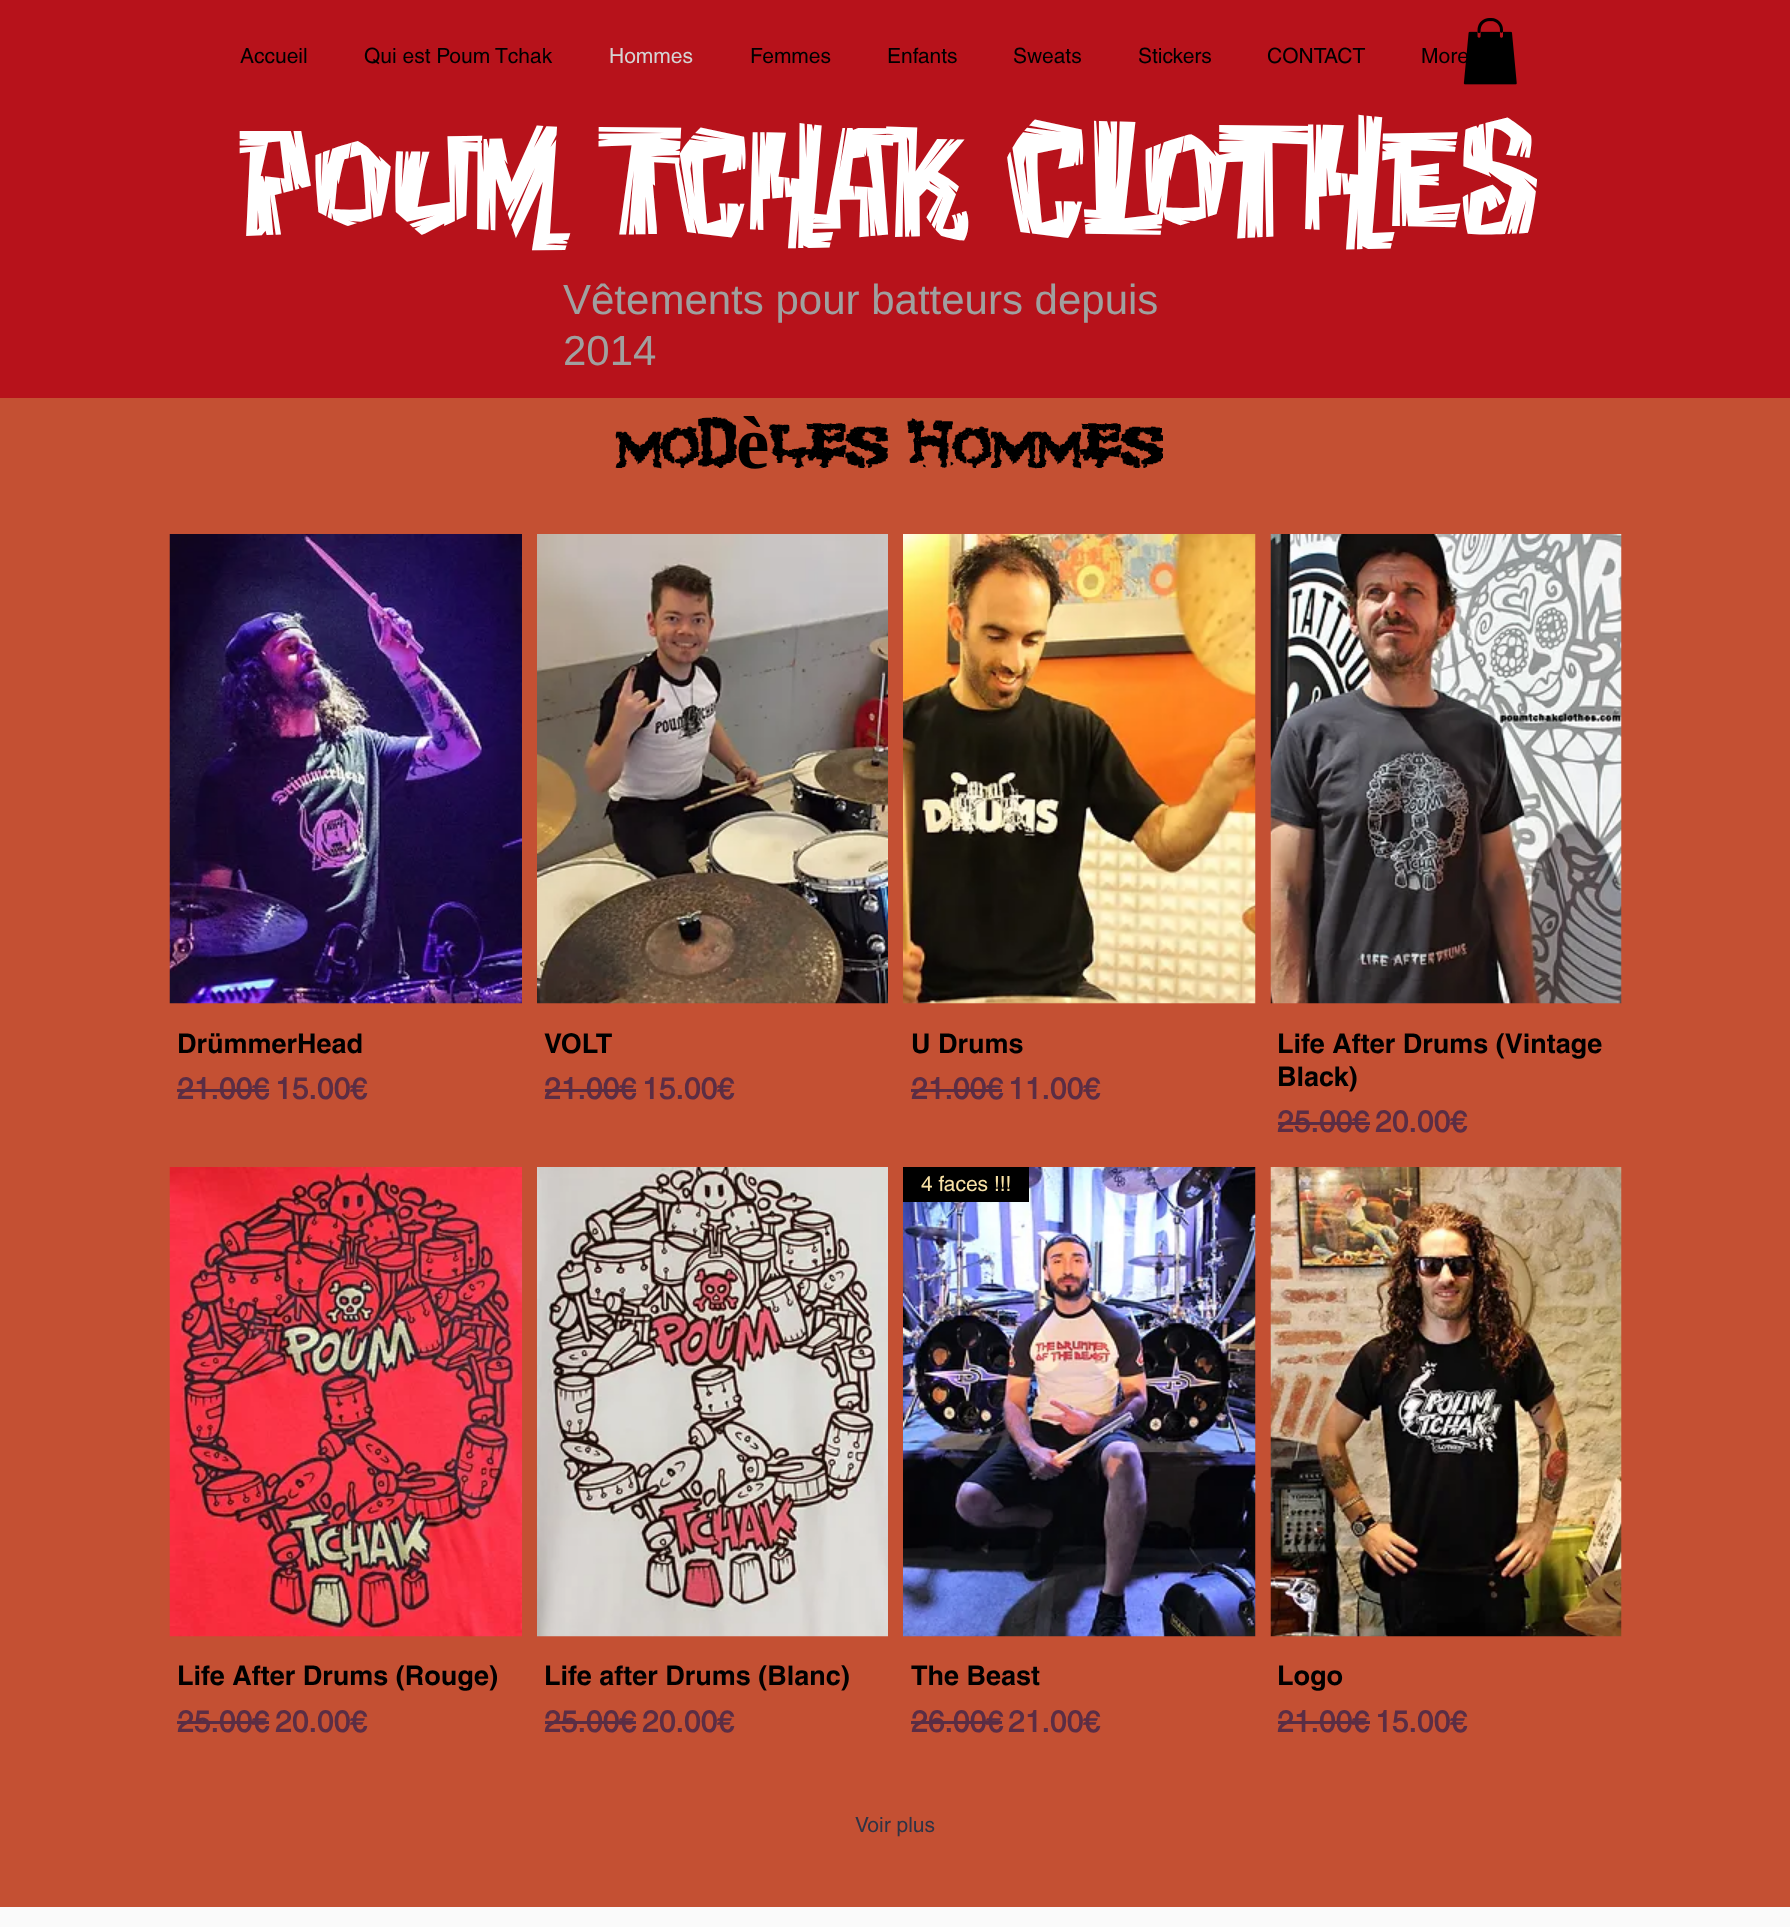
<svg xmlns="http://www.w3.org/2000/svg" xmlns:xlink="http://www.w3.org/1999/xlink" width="1790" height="1927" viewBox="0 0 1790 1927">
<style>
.cls-1{font:21px helvetica;fill:#000000}
.cls-2{font:21px helvetica;fill:#d5d4d4}
.cls-3{font:139.5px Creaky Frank;fill:#ffffff}
.cls-4{font:150px Creaky Frank;fill:#ffffff}
.cls-5{font:42px Liberation Sans;fill:#a0a09f}
.cls-6{font:bold 75px 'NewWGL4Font';fill:#000000}
.cls-7{font:bold 75px Liberation Serif;fill:#000000}
.cls-8{font:bold 27px helvetica;fill:#000000}
.cls-9{font:bold 30px 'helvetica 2';fill:#5b2d44}
.cls-10{font:21px helvetica;fill:#f9e2a6}
.cls-11{font:21px helvetica;fill:#2f3345}
</style>
<rect width="100%" height="100%" fill="#fafafa"/>
<rect fill="#b7121b" x="0" y="0" width="1790" height="398"/>
<image xlink:href="image0.png" x="1463" y="18" width="54" height="67"/>
<rect fill="#c45033" x="0" y="398" width="1790" height="1509"/>
<image xlink:href="image1.png" x="169" y="534" width="353" height="470"/>
<rect fill="#5b2d44" x="177" y="1089" width="92" height="3"/>
<image xlink:href="image2.png" x="537" y="534" width="351" height="470"/>
<rect fill="#5b2d44" x="545" y="1089" width="91" height="3"/>
<image xlink:href="image3.png" x="903" y="534" width="353" height="470"/>
<rect fill="#5b2d44" x="911" y="1089" width="91" height="3"/>
<image xlink:href="image4.png" x="1270" y="534" width="352" height="470"/>
<rect fill="#5b2d44" x="1278" y="1122" width="92" height="3"/>
<image xlink:href="image5.png" x="169" y="1167" width="353" height="470"/>
<rect fill="#5b2d44" x="177" y="1721" width="92" height="3"/>
<image xlink:href="image6.png" x="537" y="1167" width="351" height="470"/>
<rect fill="#5b2d44" x="545" y="1721" width="91" height="3"/>
<image xlink:href="image7.png" x="903" y="1167" width="353" height="470"/>
<rect fill="#000000" x="903" y="1167" width="126" height="35"/>
<rect fill="#5b2d44" x="911" y="1721" width="91" height="3"/>
<image xlink:href="image8.png" x="1270" y="1167" width="352" height="470"/>
<rect fill="#5b2d44" x="1278" y="1721" width="92" height="3"/>
<text class="cls-1" x="240" y="63">Accueil</text>
<text class="cls-1" x="364" y="63">Qui est Poum Tchak</text>
<text class="cls-2" x="609" y="63">Hommes</text>
<text class="cls-1" x="750" y="63">Femmes</text>
<text class="cls-1" x="887" y="63">Enfants</text>
<text class="cls-1" x="1013" y="63">Sweats</text>
<text class="cls-1" x="1138" y="63">Stickers</text>
<text class="cls-1" x="1267" y="63">CONTACT</text>
<text class="cls-1" x="1421" y="63">More</text>
<text class="cls-3" x="240" y="233">Poum Tchak</text>
<text class="cls-4" x="1006" y="233">Clothes</text>
<text class="cls-5"><tspan x="563" y="314">Vêtements pour batteurs depuis</tspan><tspan x="563" y="365">2014</tspan></text>
<text class="cls-6" x="615" y="468">Mod</text>
<text class="cls-7" x="736" y="468">è</text>
<text class="cls-6" x="769" y="468">les Hommes</text>
<text class="cls-8" x="177" y="1053">DrümmerHead</text>
<text class="cls-9" x="177" y="1099">21.00€</text>
<text class="cls-9" x="275" y="1099">15.00€</text>
<text class="cls-8" x="544" y="1053">VOLT</text>
<text class="cls-9" x="544" y="1099">21.00€</text>
<text class="cls-9" x="642" y="1099">15.00€</text>
<text class="cls-8" x="911" y="1053">U Drums</text>
<text class="cls-9" x="911" y="1099">21.00€</text>
<text class="cls-9" x="1008" y="1099">11.00€</text>
<text class="cls-8"><tspan x="1277" y="1053">Life After Drums (Vintage</tspan><tspan x="1277" y="1086">Black)</tspan></text>
<text class="cls-9" x="1277" y="1132">25.00€</text>
<text class="cls-9" x="1375" y="1132">20.00€</text>
<text class="cls-8" x="177" y="1685">Life After Drums (Rouge)</text>
<text class="cls-9" x="177" y="1732">25.00€</text>
<text class="cls-9" x="275" y="1732">20.00€</text>
<text class="cls-8" x="544" y="1685">Life after Drums (Blanc)</text>
<text class="cls-9" x="544" y="1732">25.00€</text>
<text class="cls-9" x="642" y="1732">20.00€</text>
<text class="cls-10" x="921" y="1191">4 faces !!!</text>
<text class="cls-8" x="911" y="1685">The Beast</text>
<text class="cls-9" x="911" y="1732">26.00€</text>
<text class="cls-9" x="1008" y="1732">21.00€</text>
<text class="cls-8" x="1277" y="1685">Logo</text>
<text class="cls-9" x="1277" y="1732">21.00€</text>
<text class="cls-9" x="1375" y="1732">15.00€</text>
<text class="cls-11" x="855" y="1832">Voir plus</text>
</svg>
